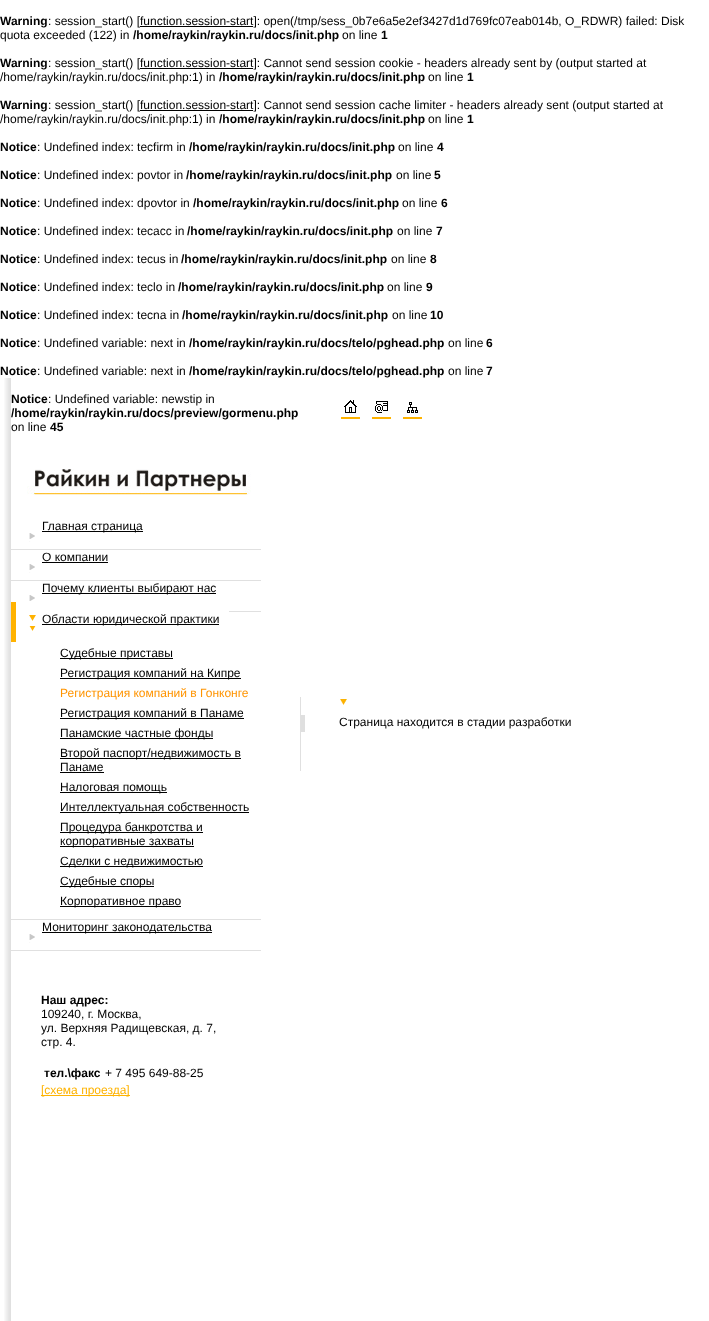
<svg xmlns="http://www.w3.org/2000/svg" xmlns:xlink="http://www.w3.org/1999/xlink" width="709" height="1321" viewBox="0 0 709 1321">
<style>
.cls-1{font:bold 12px Liberation Sans;fill:#000000}
.cls-2{font:12px Liberation Sans;fill:#000000}
.cls-3{font:12px Liberation Sans;fill:#ff9400}
.cls-4{font:12px Liberation Sans;fill:#feb302}
</style>
<rect width="100%" height="100%" fill="#ffffff"/>
<rect fill="#000000" x="140" y="26" width="113" height="1"/>
<rect fill="#000000" x="140" y="68" width="113" height="1"/>
<rect fill="#000000" x="140" y="110" width="113" height="1"/>
<image xlink:href="image0.png" x="4" y="378" width="7" height="943"/>
<image xlink:href="image1.png" x="27" y="469" width="224" height="26"/>
<image xlink:href="image2.png" x="29" y="533" width="6" height="9"/>
<rect fill="#000000" x="42" y="531" width="101" height="1"/>
<rect fill="#e0e0e0" x="11" y="549" width="250" height="1"/>
<image xlink:href="image2.png" x="29" y="564" width="6" height="9"/>
<rect fill="#000000" x="42" y="562" width="66" height="1"/>
<rect fill="#e0e0e0" x="11" y="580" width="250" height="1"/>
<image xlink:href="image3.png" x="29" y="595" width="6" height="7"/>
<rect fill="#000000" x="42" y="593" width="174" height="1"/>
<rect fill="#e0e0e0" x="229" y="611" width="32" height="1"/>
<image xlink:href="image4.png" x="11" y="626" width="25" height="16"/>
<image xlink:href="image5.png" x="11" y="602" width="218" height="24"/>
<rect fill="#000000" x="42" y="624" width="177" height="1"/>
<rect fill="#000000" x="60" y="658" width="113" height="1"/>
<rect fill="#000000" x="60" y="678" width="181" height="1"/>
<rect fill="#000000" x="60" y="718" width="184" height="1"/>
<rect fill="#000000" x="60" y="738" width="153" height="1"/>
<rect fill="#000000" x="60" y="758" width="181" height="1"/>
<rect fill="#000000" x="60" y="772" width="44" height="1"/>
<rect fill="#000000" x="60" y="792" width="107" height="1"/>
<rect fill="#000000" x="60" y="812" width="189" height="1"/>
<rect fill="#000000" x="60" y="832" width="143" height="1"/>
<rect fill="#000000" x="60" y="846" width="134" height="1"/>
<rect fill="#000000" x="60" y="866" width="143" height="1"/>
<rect fill="#000000" x="60" y="886" width="94" height="1"/>
<rect fill="#000000" x="60" y="906" width="121" height="1"/>
<rect fill="#e0e0e0" x="11" y="919" width="250" height="1"/>
<image xlink:href="image2.png" x="29" y="934" width="6" height="9"/>
<rect fill="#000000" x="42" y="932" width="170" height="1"/>
<rect fill="#e0e0e0" x="11" y="950" width="250" height="1"/>
<rect fill="#feb302" x="41" y="1095" width="89" height="1"/>
<image xlink:href="image6.png" x="341" y="400" width="19" height="19"/>
<image xlink:href="image7.png" x="372" y="401" width="19" height="18"/>
<image xlink:href="image8.png" x="403" y="402" width="19" height="17"/>
<rect fill="#e0e0e0" x="300" y="697" width="1" height="74"/>
<image xlink:href="image9.png" x="340" y="699" width="7" height="6"/>
<rect fill="#dfdfdf" x="301" y="715" width="4" height="17"/>
<text class="cls-1" x="0" y="25">Warning</text>
<text class="cls-2" x="48" y="25">: session_start() [function.session-start]: open(/tmp/sess_0b7e6a5e2ef3427d1d769fc07eab014b, O_RDWR) failed: Disk</text>
<text class="cls-2" x="0" y="39">quota exceeded (122) in</text>
<text class="cls-1" x="133" y="39">/home/raykin/raykin.ru/docs/init.php</text>
<text class="cls-2" x="342" y="39">on line</text>
<text class="cls-1" x="381" y="39">1</text>
<text class="cls-1" x="0" y="67">Warning</text>
<text class="cls-2" x="48" y="67">: session_start() [function.session-start]: Cannot send session cookie - headers already sent by (output started at</text>
<text class="cls-2" x="0" y="81">/home/raykin/raykin.ru/docs/init.php:1) in</text>
<text class="cls-1" x="219" y="81">/home/raykin/raykin.ru/docs/init.php</text>
<text class="cls-2" x="428" y="81">on line</text>
<text class="cls-1" x="467" y="81">1</text>
<text class="cls-1" x="0" y="109">Warning</text>
<text class="cls-2" x="48" y="109">: session_start() [function.session-start]: Cannot send session cache limiter - headers already sent (output started at</text>
<text class="cls-2" x="0" y="123">/home/raykin/raykin.ru/docs/init.php:1) in</text>
<text class="cls-1" x="219" y="123">/home/raykin/raykin.ru/docs/init.php</text>
<text class="cls-2" x="428" y="123">on line</text>
<text class="cls-1" x="467" y="123">1</text>
<text class="cls-1" x="0" y="151">Notice</text>
<text class="cls-2" x="37" y="151">: Undefined index: tecfirm in</text>
<text class="cls-1" x="189" y="151">/home/raykin/raykin.ru/docs/init.php</text>
<text class="cls-2" x="398" y="151">on line</text>
<text class="cls-1" x="437" y="151">4</text>
<text class="cls-1" x="0" y="179">Notice</text>
<text class="cls-2" x="37" y="179">: Undefined index: povtor in</text>
<text class="cls-1" x="186" y="179">/home/raykin/raykin.ru/docs/init.php</text>
<text class="cls-2" x="396" y="179">on line</text>
<text class="cls-1" x="434" y="179">5</text>
<text class="cls-1" x="0" y="207">Notice</text>
<text class="cls-2" x="37" y="207">: Undefined index: dpovtor in</text>
<text class="cls-1" x="193" y="207">/home/raykin/raykin.ru/docs/init.php</text>
<text class="cls-2" x="402" y="207">on line</text>
<text class="cls-1" x="441" y="207">6</text>
<text class="cls-1" x="0" y="235">Notice</text>
<text class="cls-2" x="37" y="235">: Undefined index: tecacc in</text>
<text class="cls-1" x="187" y="235">/home/raykin/raykin.ru/docs/init.php</text>
<text class="cls-2" x="397" y="235">on line</text>
<text class="cls-1" x="436" y="235">7</text>
<text class="cls-1" x="0" y="263">Notice</text>
<text class="cls-2" x="37" y="263">: Undefined index: tecus in</text>
<text class="cls-1" x="181" y="263">/home/raykin/raykin.ru/docs/init.php</text>
<text class="cls-2" x="391" y="263">on line</text>
<text class="cls-1" x="430" y="263">8</text>
<text class="cls-1" x="0" y="291">Notice</text>
<text class="cls-2" x="37" y="291">: Undefined index: teclo in</text>
<text class="cls-1" x="178" y="291">/home/raykin/raykin.ru/docs/init.php</text>
<text class="cls-2" x="387" y="291">on line</text>
<text class="cls-1" x="426" y="291">9</text>
<text class="cls-1" x="0" y="319">Notice</text>
<text class="cls-2" x="37" y="319">: Undefined index: tecna in</text>
<text class="cls-1" x="182" y="319">/home/raykin/raykin.ru/docs/init.php</text>
<text class="cls-2" x="392" y="319">on line</text>
<text class="cls-1" x="430" y="319">10</text>
<text class="cls-1" x="0" y="347">Notice</text>
<text class="cls-2" x="37" y="347">: Undefined variable: next in</text>
<text class="cls-1" x="189" y="347">/home/raykin/raykin.ru/docs/telo/pghead.php</text>
<text class="cls-2" x="448" y="347">on line</text>
<text class="cls-1" x="486" y="347">6</text>
<text class="cls-1" x="0" y="375">Notice</text>
<text class="cls-2" x="37" y="375">: Undefined variable: next in</text>
<text class="cls-1" x="189" y="375">/home/raykin/raykin.ru/docs/telo/pghead.php</text>
<text class="cls-2" x="448" y="375">on line</text>
<text class="cls-1" x="486" y="375">7</text>
<text class="cls-1" x="11" y="403">Notice</text>
<text class="cls-2" x="48" y="403">: Undefined variable: newstip in</text>
<text class="cls-1" x="11" y="417">/home/raykin/raykin.ru/docs/preview/gormenu.php</text>
<text class="cls-2" x="11" y="431">on line</text>
<text class="cls-1" x="50" y="431">45</text>
<text class="cls-2" x="42" y="530">Главная страница</text>
<text class="cls-2" x="42" y="561">О компании</text>
<text class="cls-2" x="42" y="592">Почему клиенты выбирают нас</text>
<text class="cls-2" x="42" y="623">Области юридической практики</text>
<text class="cls-2"><tspan x="60" y="657">Судебные приставы</tspan><tspan x="60" y="677">Регистрация компаний на Кипре</tspan></text>
<text class="cls-3" x="60" y="697">Регистрация компаний в Гонконге</text>
<text class="cls-2"><tspan x="60" y="717">Регистрация компаний в Панаме</tspan><tspan x="60" y="737">Панамские частные фонды</tspan><tspan x="60" y="757">Второй паспорт/недвижимость в</tspan><tspan x="60" y="771">Панаме</tspan><tspan x="60" y="791">Налоговая помощь</tspan><tspan x="60" y="811">Интеллектуальная собственность</tspan><tspan x="60" y="831">Процедура банкротства и</tspan><tspan x="60" y="845">корпоративные захваты</tspan><tspan x="60" y="865">Сделки с недвижимостью</tspan><tspan x="60" y="885">Судебные споры</tspan><tspan x="60" y="905">Корпоративное право</tspan></text>
<text class="cls-2" x="42" y="931">Мониторинг законодательства</text>
<text class="cls-1" x="41" y="1004">Наш адрес:</text>
<text class="cls-2"><tspan x="41" y="1018">109240, г. Москва,</tspan><tspan x="41" y="1032">ул. Верхняя Радищевская, д. 7,</tspan><tspan x="41" y="1046">стр. 4.</tspan></text>
<text class="cls-1" x="44" y="1077">тел.\факс</text>
<text class="cls-2" x="105" y="1077">+ 7 495 649-88-25</text>
<text class="cls-4" x="41" y="1094">[схема проезда]</text>
<text class="cls-2" x="339" y="726">Страница находится в стадии разработки</text>
</svg>
